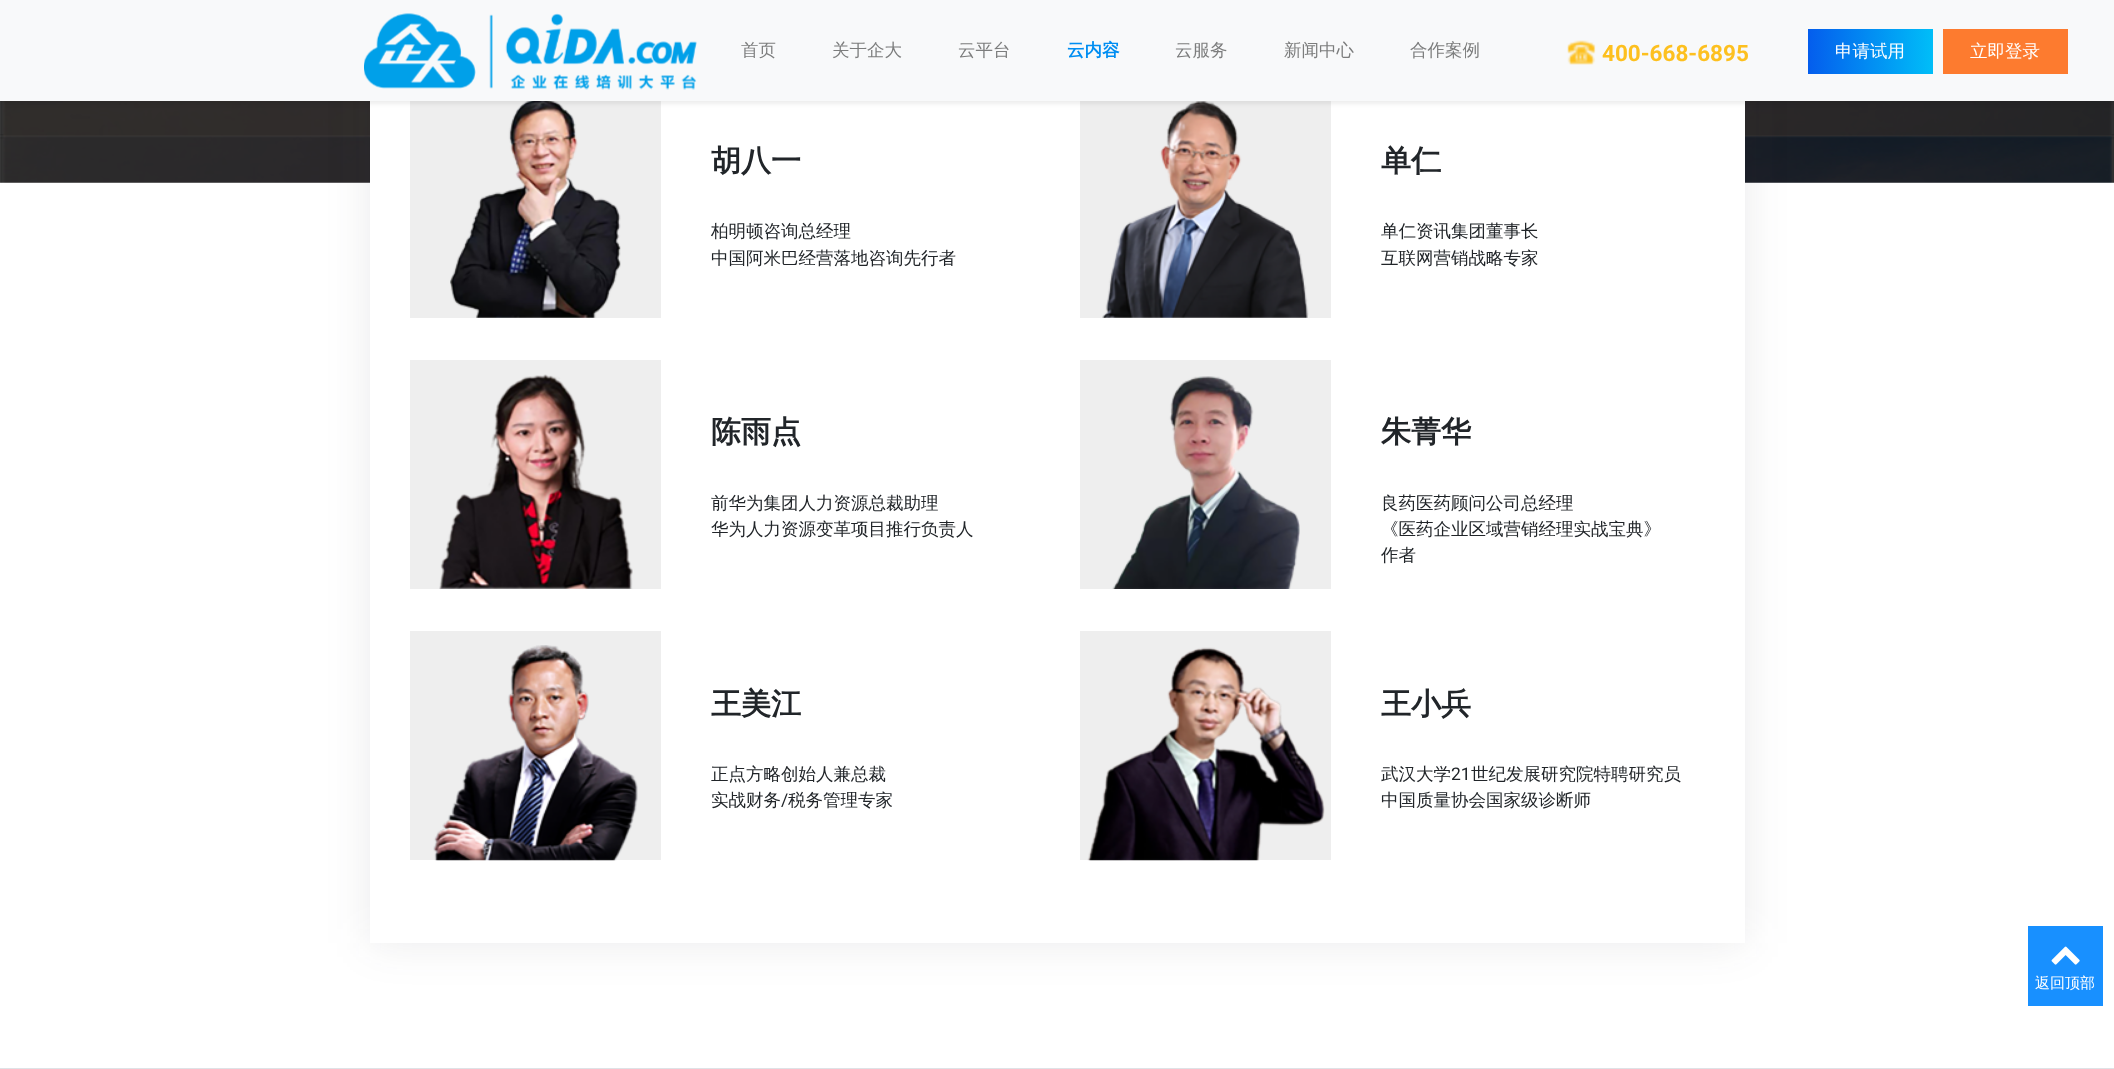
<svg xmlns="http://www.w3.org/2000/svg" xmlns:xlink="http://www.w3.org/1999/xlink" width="2114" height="1069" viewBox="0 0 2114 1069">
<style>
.cls-1{font:500 17.5px WenQuanYi Zen Hei;fill:#7c7d7d}
.cls-2{font:bold 17.5px WenQuanYi Zen Hei;fill:#008ef2}
.cls-3{font:bold 22.5px Roboto;fill:#fdc01f}
.cls-4{font:500 17.5px WenQuanYi Zen Hei;fill:#ffffff}
.cls-5{font:bold 30px WenQuanYi Zen Hei;fill:#212529}
.cls-6{font:500 17.5px WenQuanYi Zen Hei;fill:#212529}
.cls-7{font:17.5px Roboto;fill:#212529}
.cls-8{font:500 15px WenQuanYi Zen Hei;fill:#ffffff}
</style>
<defs>
<linearGradient id="g1" gradientUnits="userSpaceOnUse" x1="1808" y1="51" x2="1933" y2="51"><stop offset="0" stop-color="#045ded"/><stop offset="1" stop-color="#00bef8"/></linearGradient>
</defs>
<rect width="100%" height="100%" fill="#ffffff"/>
<image xlink:href="image2.png" x="0" y="101" width="2114" height="82"/>
<rect fill="#30333b" fill-opacity="0.1" filter="blur(22px)" x="370" y="49" width="1375" height="894"/>
<rect fill="#ffffff" x="370" y="101" width="1375" height="842"/>
<rect fill="#eeeeee" x="410" y="101" width="251" height="217"/>
<image xlink:href="image3.png" x="450" y="101" width="171" height="217"/>
<rect fill="#eeeeee" x="1080" y="101" width="251" height="217"/>
<image xlink:href="image4.png" x="1102" y="101" width="207" height="217"/>
<rect fill="#000000" fill-opacity="0.07" filter="blur(2px)" x="0" y="3" width="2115" height="101"/>
<rect fill="#f8f9fa" x="0" y="0" width="2114" height="101"/>
<image xlink:href="image0.png" x="364" y="13" width="333" height="77"/>
<image xlink:href="image1.png" x="1567" y="40" width="29" height="25"/>
<rect fill="url(#g1)" x="1808" y="29" width="125" height="45"/>
<rect fill="#fd7b2f" x="1943" y="29" width="125" height="45"/>
<rect fill="#eeeeee" x="410" y="360" width="251" height="229"/>
<image xlink:href="image5.png" x="439" y="374" width="194" height="215"/>
<rect fill="#eeeeee" x="1080" y="360" width="251" height="229"/>
<image xlink:href="image6.png" x="1112" y="376" width="188" height="213"/>
<rect fill="#eeeeee" x="410" y="631" width="251" height="229"/>
<image xlink:href="image7.png" x="433" y="645" width="205" height="216"/>
<rect fill="#eeeeee" x="1080" y="631" width="251" height="229"/>
<image xlink:href="image8.png" x="1087" y="647" width="238" height="214"/>
<rect fill="#1890ff" x="2028" y="926" width="75" height="80"/>
<image xlink:href="image9.png" x="2051" y="946" width="29" height="19"/>
<rect fill="#dee2e6" x="0" y="1068" width="2114" height="1"/>
<text class="cls-1" x="741" y="56">首页</text>
<text class="cls-1" x="832" y="56">关于企大</text>
<text class="cls-1" x="958" y="56">云平台</text>
<text class="cls-2" x="1067" y="56">云内容</text>
<text class="cls-1" x="1175" y="56">云服务</text>
<text class="cls-1" x="1284" y="56">新闻中心</text>
<text class="cls-1" x="1410" y="56">合作案例</text>
<text class="cls-3" x="1602" y="61">400-668-6895</text>
<text class="cls-4" x="1835" y="57">申请试用</text>
<text class="cls-4" x="1970" y="57">立即登录</text>
<text class="cls-5" x="711" y="171">胡八一</text>
<text class="cls-6"><tspan x="711" y="237">柏明顿咨询总经理</tspan><tspan x="711" y="264">中国阿米巴经营落地咨询先行者</tspan></text>
<text class="cls-5" x="1381" y="171">单仁</text>
<text class="cls-6"><tspan x="1381" y="237">单仁资讯集团董事长</tspan><tspan x="1381" y="264">互联网营销战略专家</tspan></text>
<text class="cls-5" x="711" y="442">陈雨点</text>
<text class="cls-6"><tspan x="711" y="509">前华为集团人力资源总裁助理</tspan><tspan x="711" y="535">华为人力资源变革项目推行负责人</tspan></text>
<text class="cls-5" x="1381" y="442">朱菁华</text>
<text class="cls-6"><tspan x="1381" y="509">良药医药顾问公司总经理</tspan><tspan x="1381" y="535">《医药企业区域营销经理实战宝典》</tspan><tspan x="1381" y="561">作者</tspan></text>
<text class="cls-5" x="711" y="714">王美江</text>
<text class="cls-6"><tspan x="711" y="780">正点方略创始人兼总裁</tspan><tspan x="711" y="806">实战财务</tspan></text>
<text class="cls-7" x="781" y="806">/</text>
<text class="cls-6" x="788" y="806">税务管理专家</text>
<text class="cls-5" x="1381" y="714">王小兵</text>
<text class="cls-6" x="1381" y="780">武汉大学</text>
<text class="cls-7" x="1451" y="780">21</text>
<text class="cls-6" x="1471" y="780">世纪发展研究院特聘研究员</text>
<text class="cls-6" x="1381" y="806">中国质量协会国家级诊断师</text>
<text class="cls-8" x="2035" y="988">返回顶部</text>
</svg>
